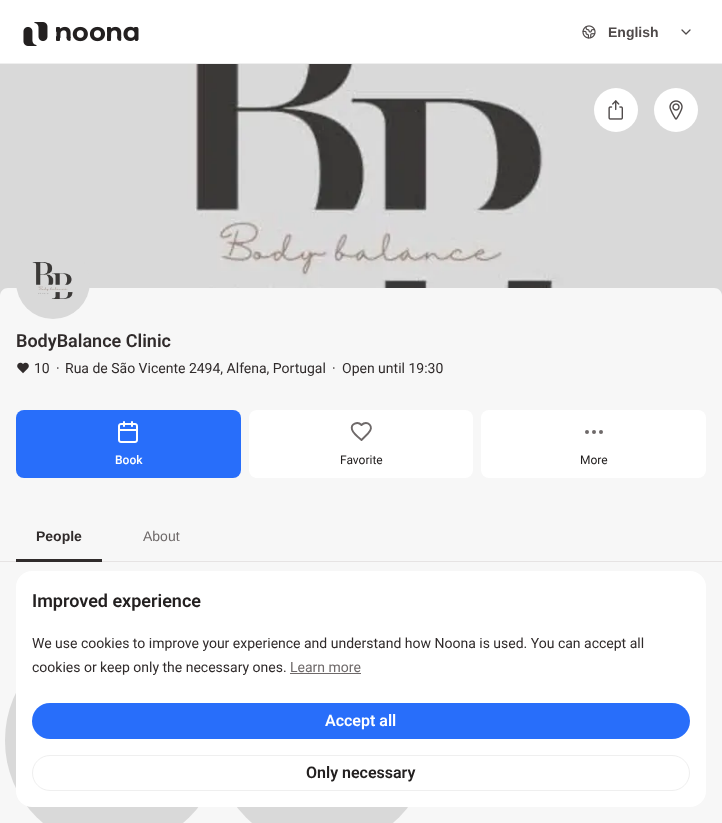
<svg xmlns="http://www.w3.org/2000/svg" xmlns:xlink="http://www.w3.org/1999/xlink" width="722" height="823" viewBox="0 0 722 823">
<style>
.cls-1{font:bold 14px Liberation Sans;fill:#4f4a4a}
.cls-2{font:600 18px Roboto;fill:#302b2b}
.cls-3{font:14px Roboto;fill:#302b2b}
.cls-4{font:500 12px Roboto;fill:#ffffff}
.cls-5{font:12px Roboto;fill:#232020}
.cls-6{font:bold 14px Liberation Sans;fill:#302b2b}
.cls-7{font:14px Liberation Sans;fill:#6e6969}
.cls-8{font:600 18px Roboto;fill:#232020}
.cls-9{font:14px Roboto;fill:#6e6969}
.cls-10{font:600 16px Roboto;fill:#ffffff}
.cls-11{font:600 16px Roboto;fill:#232020}
</style>
<rect width="100%" height="100%" fill="#ffffff"/>
<rect fill="#efefef" x="0" y="63" width="722" height="1"/>
<image xlink:href="image0.png" x="23" y="22" width="116" height="24"/>
<image xlink:href="image1.png" x="582" y="25" width="14" height="14"/>
<path fill="none" stroke="#4f4a4a" stroke-width="1.3" stroke-linecap="round" stroke-linejoin="round" d="M682 30L686 34L690 30"/>
<image xlink:href="image2.png" x="0" y="64" width="722" height="232"/>
<circle fill="#ffffff" cx="616" cy="110" r="22"/>
<image xlink:href="image3.png" x="608" y="100" width="15" height="20"/>
<circle fill="#ffffff" cx="676" cy="110" r="22"/>
<image xlink:href="image4.png" x="669" y="100" width="14" height="20"/>
<path fill="#f7f7f7" d="M8 288H714C718.5 288 722 291.5 722 296V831H0V296C0 291.5 3.5 288 8 288Z"/>
<image xlink:href="image5.png" x="16" y="262" width="74" height="57"/>
<image xlink:href="image6.png" x="17" y="362" width="12" height="12"/>
<rect fill="#286efa" x="16" y="410" width="225" height="68" rx="8"/>
<image xlink:href="image7.png" x="118" y="421" width="20" height="22"/>
<rect fill="#ffffff" x="249" y="410" width="224" height="68" rx="8"/>
<path fill="none" stroke="#6e6969" stroke-width="1.9" stroke-linecap="round" stroke-linejoin="round" d="M368 433.5C375.5 426.5 367 419.5 361.5 425C357.5 421 350.5 424 352 429.5C353 433 359 438 361.5 440Z"/>
<rect fill="#ffffff" x="481" y="410" width="225" height="68" rx="8"/>
<circle fill="none" stroke="#6e6969" stroke-width="2" cx="594" cy="432" r="1"/>
<circle fill="none" stroke="#6e6969" stroke-width="2" cx="601" cy="432" r="1"/>
<circle fill="none" stroke="#6e6969" stroke-width="2" cx="587" cy="432" r="1"/>
<rect fill="#e6e3e3" x="0" y="561" width="722" height="1"/>
<rect fill="#302b2b" x="16" y="559" width="86" height="3"/>
<image xlink:href="image8.png" x="5" y="693" width="194" height="130"/>
<image xlink:href="image9.png" x="237" y="807" width="171" height="16"/>
<rect fill="#ffffff" x="16" y="571" width="690" height="236" rx="16"/>
<rect fill="#6e6969" x="290" y="673" width="71" height="1"/>
<rect fill="#286efa" x="32" y="703" width="658" height="36" rx="18"/>
<rect fill="none" stroke="#efefef" x="32.5" y="755.5" width="657" height="35" rx="17.5"/>
<text class="cls-1" x="608" y="37">English</text>
<text class="cls-2" x="16" y="347">BodyBalance Clinic</text>
<text class="cls-3" x="34" y="373">10</text>
<text class="cls-3" x="56" y="373">·</text>
<text class="cls-3" x="65" y="373">Rua de São Vicente 2494, Alfena, Portugal</text>
<text class="cls-3" x="332" y="373">·</text>
<text class="cls-3" x="342" y="373">Open until 19:30</text>
<text class="cls-4" x="115" y="464">Book</text>
<text class="cls-5" x="340" y="464">Favorite</text>
<text class="cls-5" x="580" y="464">More</text>
<text class="cls-6" x="36" y="541">People</text>
<text class="cls-7" x="143" y="541">About</text>
<text class="cls-8" x="32" y="607">Improved experience</text>
<text class="cls-3"><tspan x="32" y="648">We use cookies to improve your experience and understand how Noona is used. You can accept all</tspan><tspan x="32" y="672">cookies or keep only the necessary ones.</tspan></text>
<text class="cls-9" x="290" y="672">Learn more</text>
<text class="cls-10" x="325" y="726">Accept all</text>
<text class="cls-11" x="306" y="778">Only necessary</text>
</svg>
